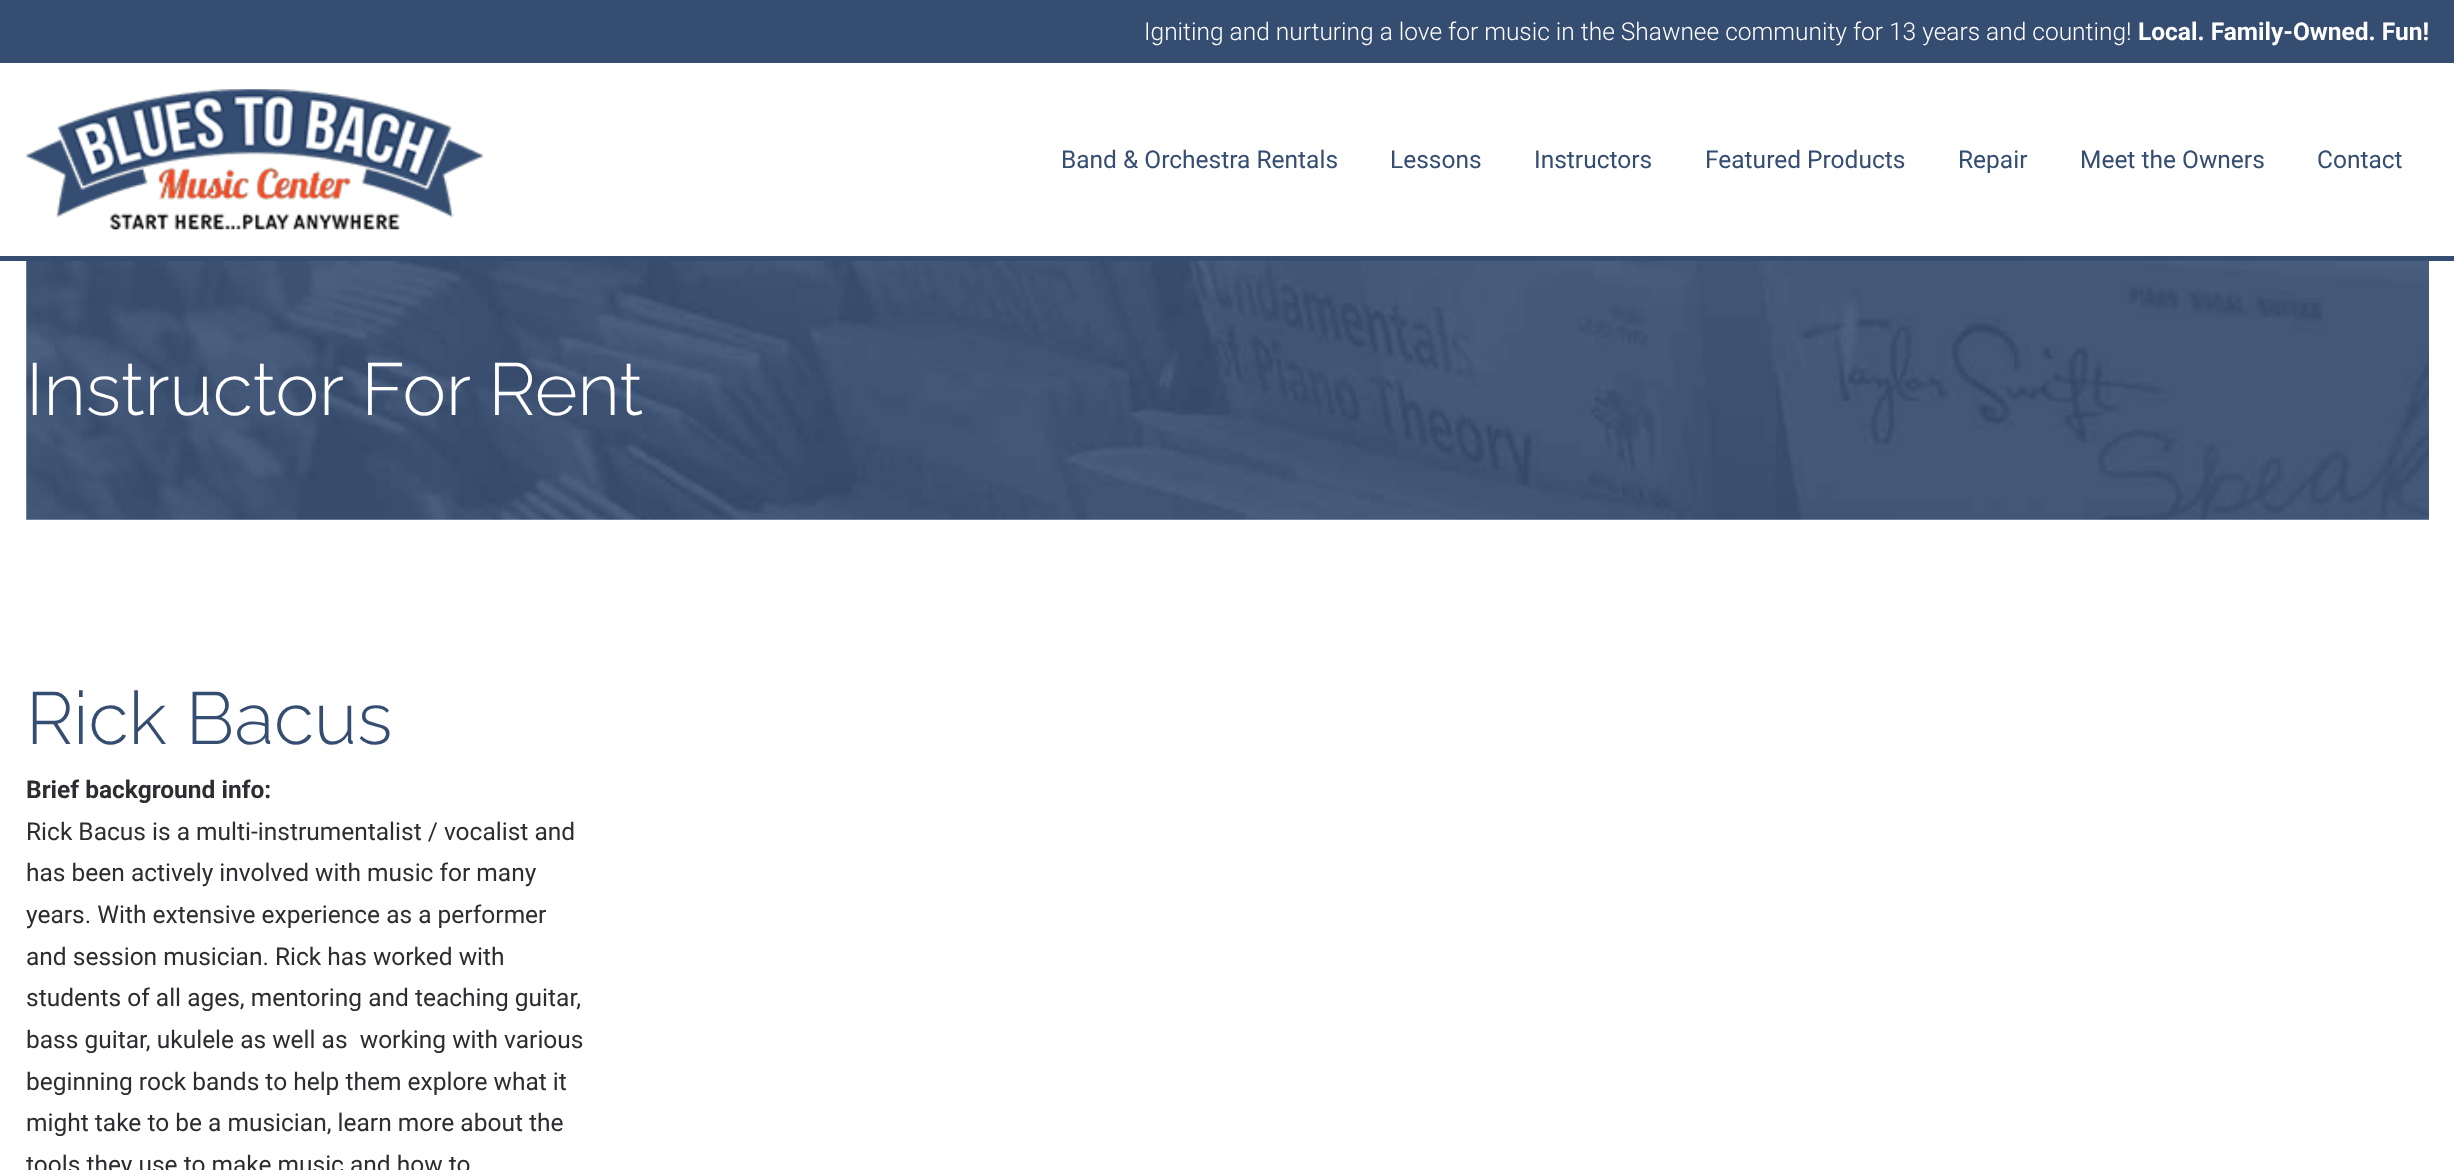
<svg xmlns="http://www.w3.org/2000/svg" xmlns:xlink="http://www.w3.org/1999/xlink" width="2454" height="1170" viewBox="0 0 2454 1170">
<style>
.cls-1{font:300 24.5px Roboto;fill:#ffffff}
.cls-2{font:bold 24.5px Roboto;fill:#ffffff}
.cls-3{font:24.5px Roboto;fill:#354d71}
.cls-4{font:300 73.5px Raleway;fill:#ffffff}
.cls-5{font:300 73.5px Raleway;fill:#354d71}
.cls-6{font:bold 24.5px Roboto;fill:#2b2d30}
.cls-7{font:24.5px Roboto;fill:#2b2d30}
</style>
<rect width="100%" height="100%" fill="#ffffff"/>
<rect fill="#354d71" x="0" y="0" width="2454" height="63"/>
<rect fill="#354d71" x="0" y="256" width="2454" height="5"/>
<image xlink:href="image0.png" x="26" y="89" width="457" height="141"/>
<image xlink:href="image1.png" x="26" y="260" width="2403" height="260"/>
<text class="cls-1" x="1144" y="40">Igniting and nurturing a love for music in the Shawnee community for 13 years and counting!</text>
<text class="cls-2" x="2138" y="40">Local. Family-Owned. Fun!</text>
<text class="cls-3" x="1061" y="168">Band &amp; Orchestra Rentals</text>
<text class="cls-3" x="1390" y="168">Lessons</text>
<text class="cls-3" x="1534" y="168">Instructors</text>
<text class="cls-3" x="1705" y="168">Featured Products</text>
<text class="cls-3" x="1958" y="168">Repair</text>
<text class="cls-3" x="2080" y="168">Meet the Owners</text>
<text class="cls-3" x="2317" y="168">Contact</text>
<text class="cls-4" x="26" y="415">Instructor For Rent</text>
<text class="cls-5" x="26" y="744">Rick Bacus</text>
<text class="cls-6" x="26" y="798">Brief background info:</text>
<text class="cls-7" xml:space="preserve"><tspan x="26" y="840">Rick Bacus is a multi-instrumentalist / vocalist and</tspan><tspan x="26" y="881">has been actively involved with music for many</tspan><tspan x="26" y="923">years. With extensive experience as a performer</tspan><tspan x="26" y="965">and session musician. Rick has worked with</tspan><tspan x="26" y="1006">students of all ages, mentoring and teaching guitar,</tspan><tspan x="26" y="1048">bass guitar, ukulele as well as  working with various</tspan><tspan x="26" y="1090">beginning rock bands to help them explore what it</tspan><tspan x="26" y="1131">might take to be a musician, learn more about the</tspan><tspan x="26" y="1173">tools they use to make music and how to</tspan></text>
</svg>
